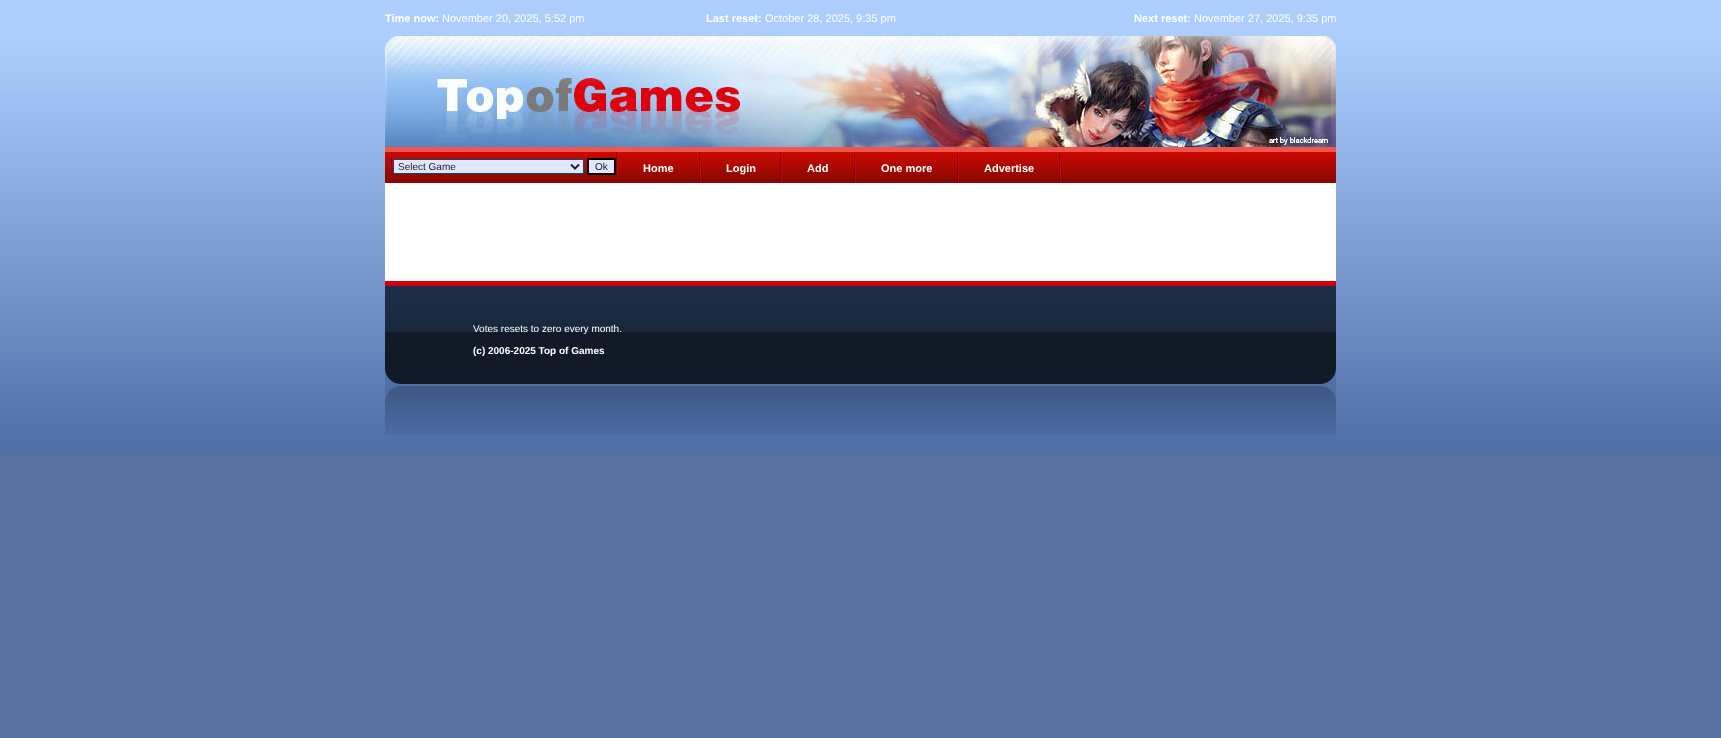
<svg xmlns="http://www.w3.org/2000/svg" xmlns:xlink="http://www.w3.org/1999/xlink" width="1721" height="738" viewBox="0 0 1721 738">
<style>
.cls-1{font:bold 11px Liberation Sans;fill:#ffffff}
.cls-2{font:11px Liberation Sans;fill:#ffffff}
.cls-3{font:10px Liberation Sans;fill:#222222}
.cls-4{font:10px Liberation Sans;fill:#ffffff}
.cls-5{font:bold 10px Liberation Sans;fill:#ffffff}
</style>
<rect width="100%" height="100%" fill="#5670a1"/>
<image xlink:href="image0.png" x="0" y="0" width="1721" height="454"/>
<image xlink:href="image1.png" x="385" y="36" width="951" height="111"/>
<image xlink:href="image2.png" x="385" y="147" width="951" height="36"/>
<image xlink:href="image3.png" x="391" y="153" width="2" height="12"/>
<image xlink:href="image4.png" x="616" y="153" width="2" height="22"/>
<rect fill="#e0e7ff" stroke="#034d7a" x="393.5" y="159.5" width="190" height="14"/>
<path fill="none" stroke="#222222" stroke-width="2" d="M571 164.5L575 168.5L579 164.5"/>
<rect fill="#e0e7ff" stroke="#000000" stroke-width="2" x="588" y="159" width="27" height="15"/>
<image xlink:href="image5.png" x="699" y="153" width="2" height="30"/>
<image xlink:href="image5.png" x="780" y="153" width="2" height="30"/>
<image xlink:href="image5.png" x="854" y="153" width="2" height="30"/>
<image xlink:href="image5.png" x="957" y="153" width="2" height="30"/>
<image xlink:href="image5.png" x="1059" y="153" width="2" height="30"/>
<rect fill="#ffffff" x="385" y="183" width="951" height="98"/>
<image xlink:href="image6.png" x="385" y="281" width="951" height="154"/>
<text class="cls-1" x="385" y="22">Time now:</text>
<text class="cls-2" x="442" y="22">November 20, 2025, 5:52 pm</text>
<text class="cls-1" x="706" y="22">Last reset:</text>
<text class="cls-2" x="765" y="22">October 28, 2025, 9:35 pm</text>
<text class="cls-1" x="1134" y="22">Next reset:</text>
<text class="cls-2" x="1194" y="22">November 27, 2025, 9:35 pm</text>
<text class="cls-3" x="398" y="170">Select Game</text>
<text class="cls-3" x="595" y="170">Ok</text>
<text class="cls-1" x="643" y="172">Home</text>
<text class="cls-1" x="726" y="172">Login</text>
<text class="cls-1" x="807" y="172">Add</text>
<text class="cls-1" x="881" y="172">One more</text>
<text class="cls-1" x="984" y="172">Advertise</text>
<text class="cls-4" x="473" y="332">Votes resets to zero every month.</text>
<text class="cls-5" x="473" y="354">(c) 2006-2025 Top of Games</text>
</svg>
